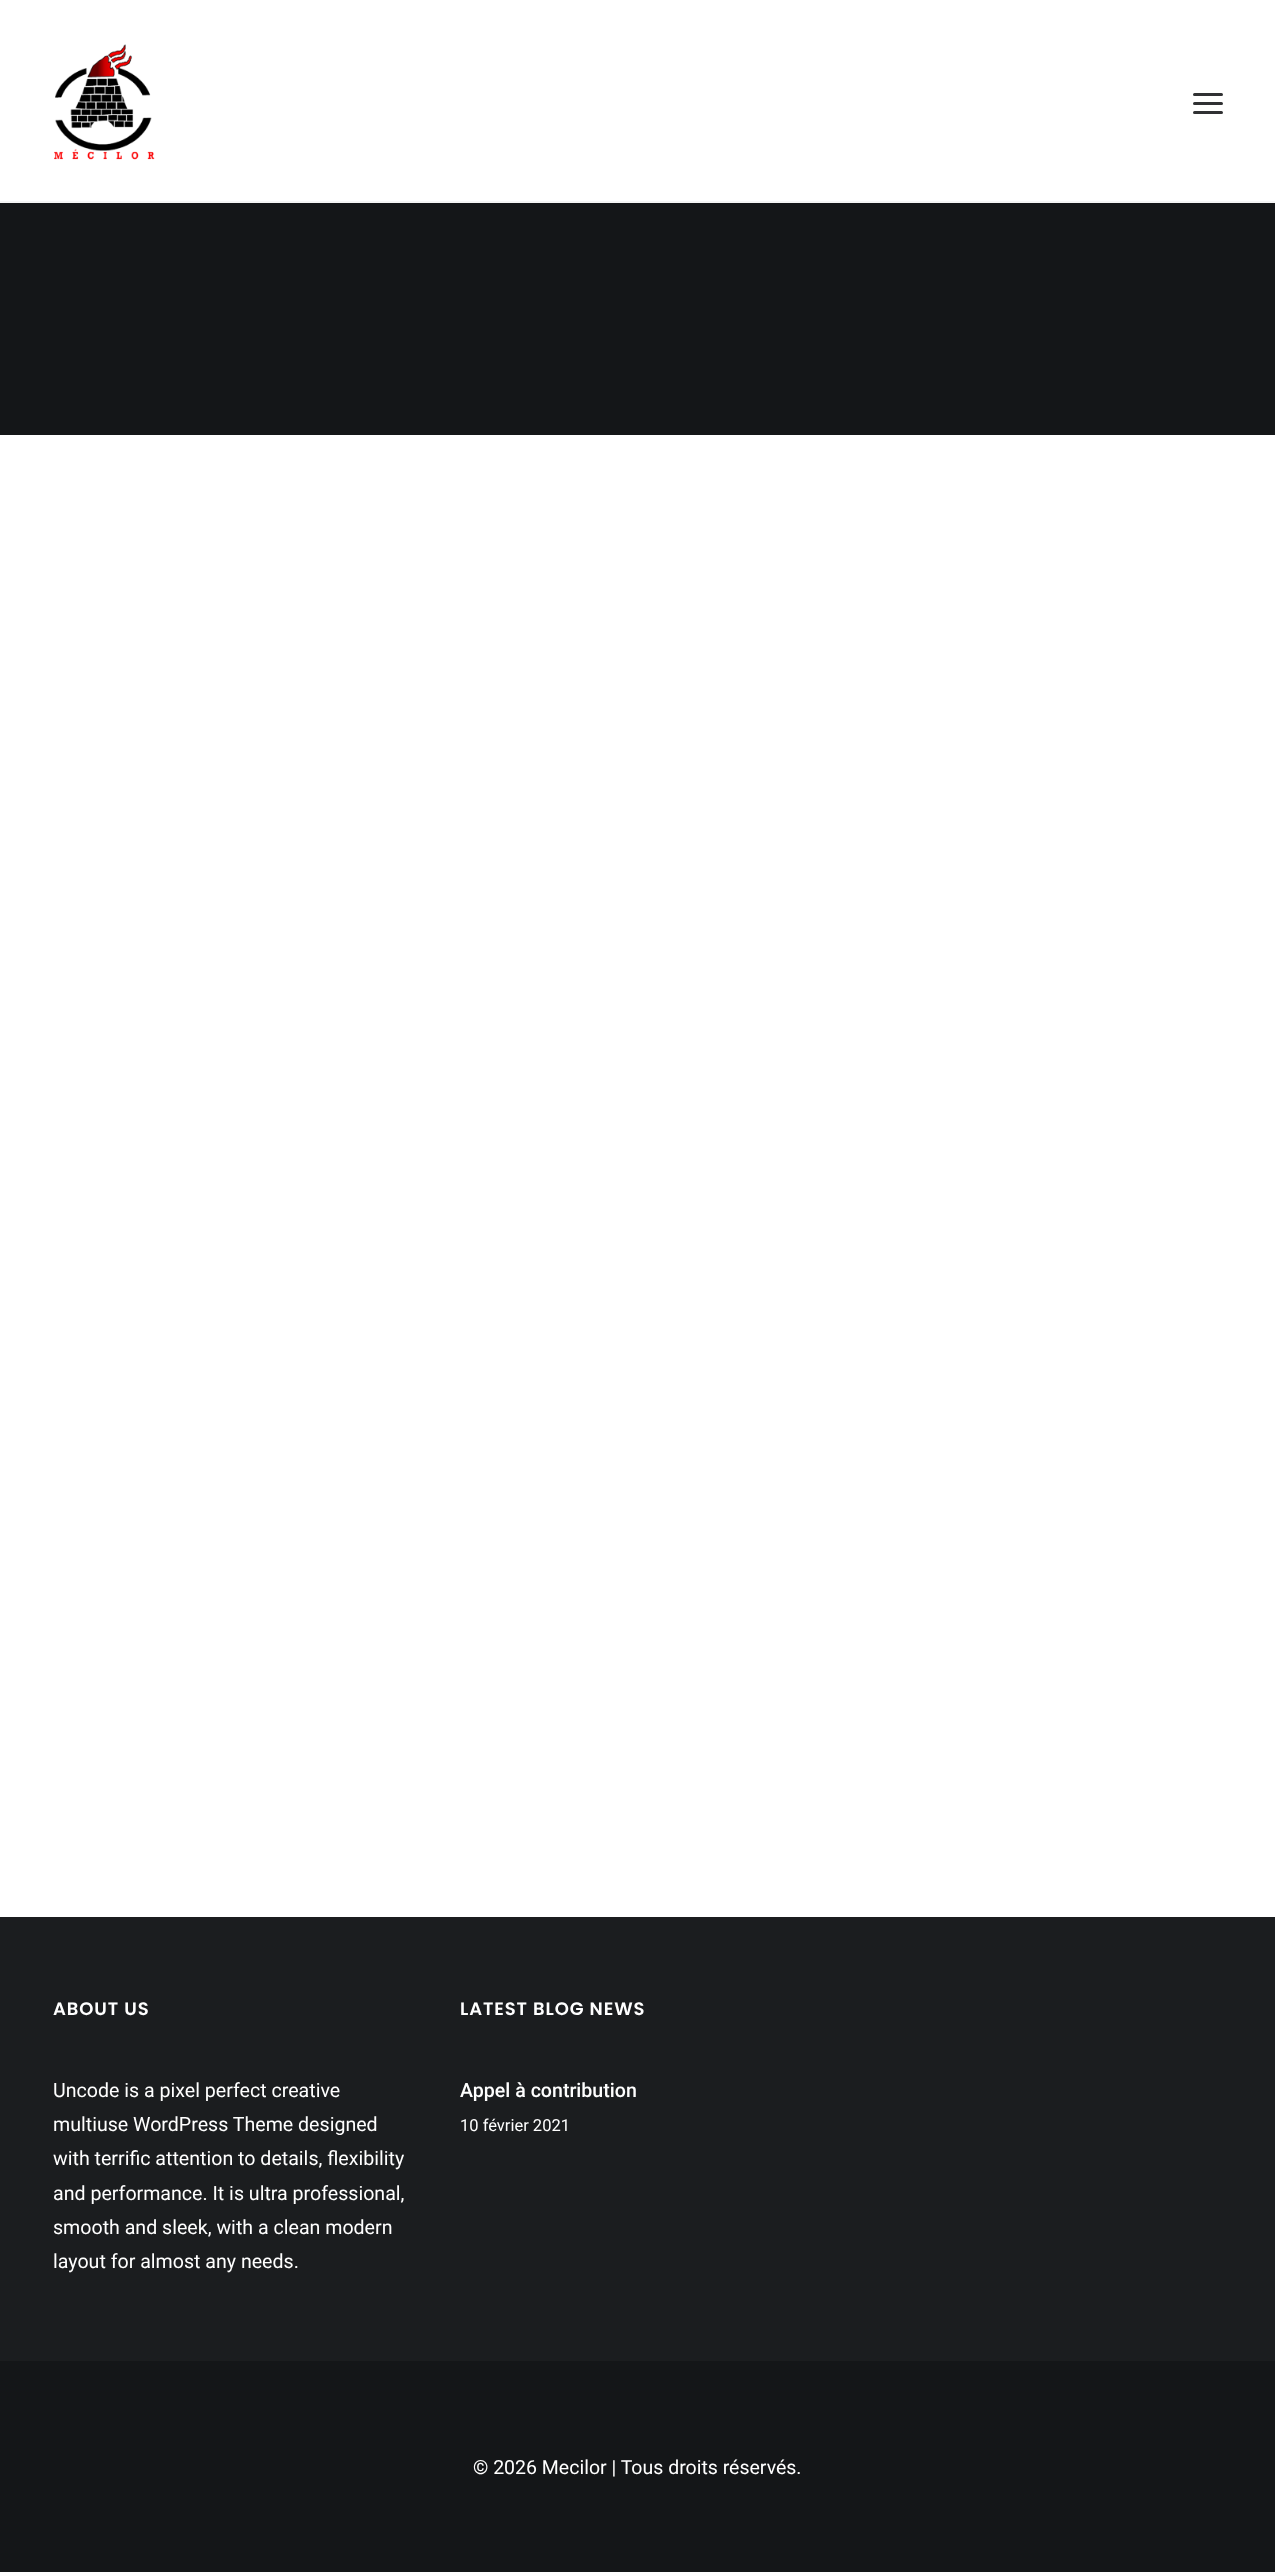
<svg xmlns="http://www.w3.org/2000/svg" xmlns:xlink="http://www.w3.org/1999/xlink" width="1275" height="2572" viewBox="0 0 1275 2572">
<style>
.cls-1{font:600 18px Poppins;letter-spacing:0.9px;fill:#ffffff}
.cls-2{font:19.6px Roboto;fill:#ffffff}
.cls-3{font:500 19.6px Roboto;fill:#ffffff}
.cls-4{font:16.5px Roboto;fill:#ffffff}
.cls-5{font:19.5px Roboto;fill:#ffffff}
</style>
<rect width="100%" height="100%" fill="#141618"/>
<rect fill="#ffffff" x="0" y="0" width="1275" height="201"/>
<rect fill="#f5f5f5" x="0" y="201" width="1275" height="2"/>
<image xlink:href="image0.png" x="54" y="44" width="101" height="116"/>
<rect fill="#303133" x="1193" y="102" width="30" height="3" rx="1.5"/>
<rect fill="#303133" x="1193" y="93" width="30" height="3" rx="1.5"/>
<rect fill="#303133" x="1193" y="111" width="30" height="3" rx="1.5"/>
<rect fill="#ffffff" x="0" y="435" width="1275" height="1482"/>
<rect fill="#1b1d1f" x="0" y="1917" width="1275" height="444"/>
<text class="cls-1" x="53" y="2015">ABOUT US</text>
<text class="cls-2"><tspan x="53" y="2097">Uncode is a pixel perfect creative</tspan><tspan x="53" y="2131">multiuse WordPress Theme designed</tspan><tspan x="53" y="2165">with terrific attention to details, flexibility</tspan><tspan x="53" y="2200">and performance. It is ultra professional,</tspan><tspan x="53" y="2234">smooth and sleek, with a clean modern</tspan><tspan x="53" y="2268">layout for almost any needs.</tspan></text>
<text class="cls-1" x="460" y="2015">LATEST BLOG NEWS</text>
<text class="cls-3" x="460" y="2097">Appel à contribution</text>
<text class="cls-4" x="460" y="2131">10 février 2021</text>
<text class="cls-5" x="473" y="2474">© 2026 Mecilor | Tous droits réservés.</text>
</svg>
